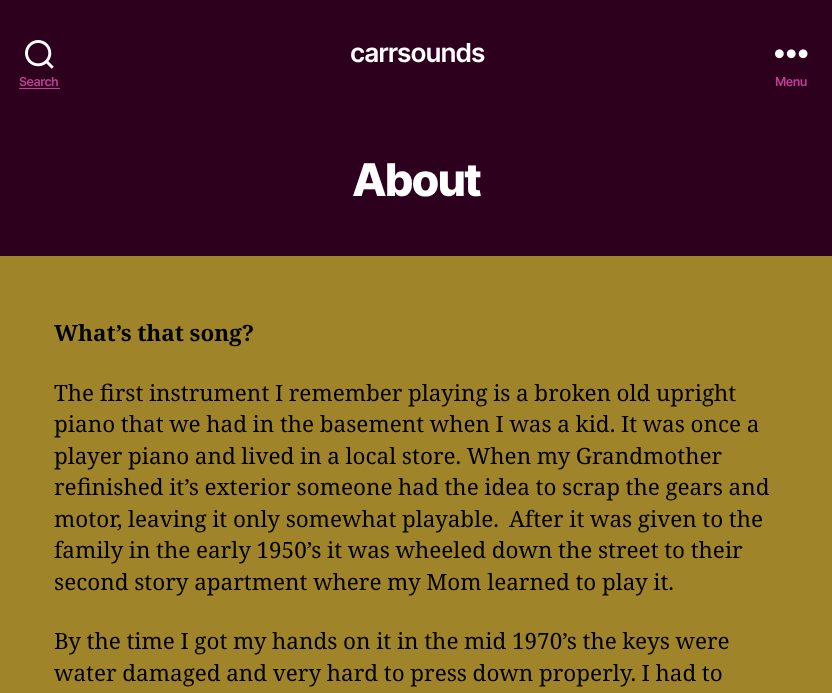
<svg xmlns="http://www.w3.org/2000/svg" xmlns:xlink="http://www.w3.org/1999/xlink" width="832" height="693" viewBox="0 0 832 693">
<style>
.cls-1{font:600 26.25px Inter;letter-spacing:-1px;fill:#ffffff}
.cls-2{font:600 12.5px Inter;letter-spacing:-0.5px;fill:#bf3f92}
.cls-3{font:800 45px Inter;letter-spacing:-2px;fill:#ffffff}
.cls-4{font:bold 22.5px Noto Serif;fill:#000000}
.cls-5{font:22.5px Noto Serif;fill:#000000}
</style>
<rect width="100%" height="100%" fill="#a08429"/>
<rect fill="#2d001e" x="0" y="0" width="832" height="256"/>
<image xlink:href="image0.png" x="25" y="40" width="29" height="29"/>
<rect fill="#bf3f92" x="19" y="88" width="41" height="1"/>
<image xlink:href="image1.png" x="775" y="49" width="33" height="10"/>
<text class="cls-1" x="350" y="62">carrsounds</text>
<text class="cls-2" x="19" y="86">Search</text>
<text class="cls-2" x="775" y="86">Menu</text>
<text class="cls-3" x="352" y="196">About</text>
<text class="cls-4" x="54" y="341" word-spacing="-0.25">What’s that song?</text>
<text class="cls-5"><tspan x="54" y="401" word-spacing="-0.25">The first instrument I remember playing is a broken old upright</tspan><tspan x="54" y="432" word-spacing="-0.25">piano that we had in the basement when I was a kid. It was once a</tspan><tspan x="54" y="464" word-spacing="-0.25">player piano and lived in a local store. When my Grandmother</tspan><tspan x="54" y="495" word-spacing="-0.25">refinished it’s exterior someone had the idea to scrap the gears and</tspan><tspan x="54" y="527" word-spacing="-0.25">motor, leaving it only somewhat playable.</tspan></text>
<text class="cls-5" x="509" y="527" word-spacing="-0.25">After it was given to the</text>
<text class="cls-5"><tspan x="54" y="558" word-spacing="-0.25">family in the early 1950’s it was wheeled down the street to their</tspan><tspan x="54" y="590" word-spacing="-0.25">second story apartment where my Mom learned to play it.</tspan></text>
<text class="cls-5"><tspan x="54" y="649" word-spacing="-0.25">By the time I got my hands on it in the mid 1970’s the keys were</tspan><tspan x="54" y="681" word-spacing="-0.25">water damaged and very hard to press down properly. I had to</tspan></text>
</svg>
